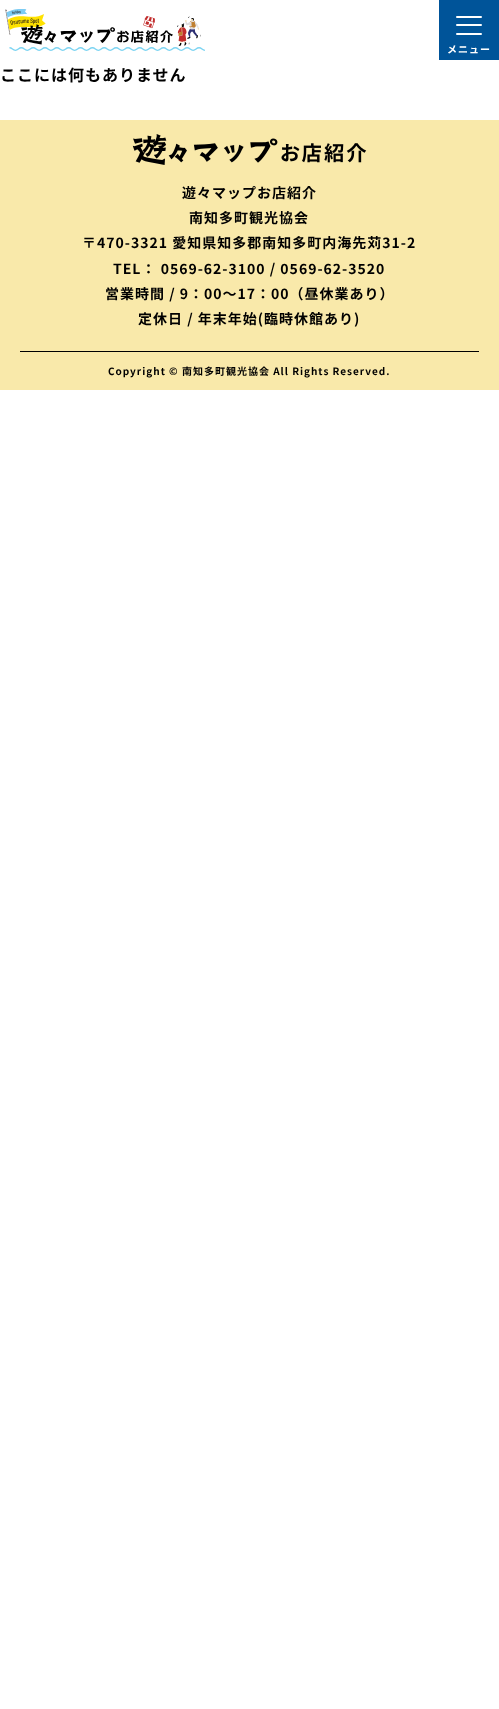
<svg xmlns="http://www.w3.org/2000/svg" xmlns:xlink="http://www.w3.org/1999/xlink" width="499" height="1709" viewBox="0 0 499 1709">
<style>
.cls-1{font:bold 10px Noto Sans JP;letter-spacing:1px;fill:#ffffff}
.cls-2{font:bold 16px Noto Sans JP;letter-spacing:1px;fill:#000000}
.cls-3{font:bold 14px Noto Sans JP;letter-spacing:1px;fill:#000000}
.cls-4{font:bold 10px Noto Sans JP;letter-spacing:1px;fill:#000000}
</style>
<rect width="100%" height="100%" fill="#ffffff"/>
<image xlink:href="image0.png" x="5" y="9" width="200" height="42"/>
<rect fill="#005499" x="439" y="0" width="60" height="60"/>
<rect fill="#ffffff" x="456" y="16" width="26" height="2" rx="1"/>
<rect fill="#ffffff" x="456" y="24" width="26" height="2" rx="1"/>
<rect fill="#ffffff" x="456" y="33" width="26" height="2" rx="1"/>
<rect fill="#f9e9aa" x="0" y="120" width="499" height="270"/>
<image xlink:href="image1.png" x="132" y="134" width="235" height="31"/>
<rect fill="#000000" x="20" y="351" width="459" height="1"/>
<text class="cls-1" x="447" y="53">メニュー</text>
<text class="cls-2" x="0" y="81">ここには何もありません</text>
<text class="cls-3" x="182" y="198">遊々マップお店紹介</text>
<text class="cls-3" x="189" y="223">南知多町観光協会</text>
<text class="cls-3" x="82" y="248">〒470-3321 愛知県知多郡南知多町内海先苅31-2</text>
<text class="cls-3" x="113" y="274">TEL： 0569-62-3100 / 0569-62-3520</text>
<text class="cls-3" x="105" y="299">営業時間 / 9：00〜17：00（昼休業あり）</text>
<text class="cls-3" x="138" y="324">定休日 / 年末年始(臨時休館あり)</text>
<text class="cls-4" x="108" y="375">Copyright © 南知多町観光協会 All Rights Reserved.</text>
</svg>
